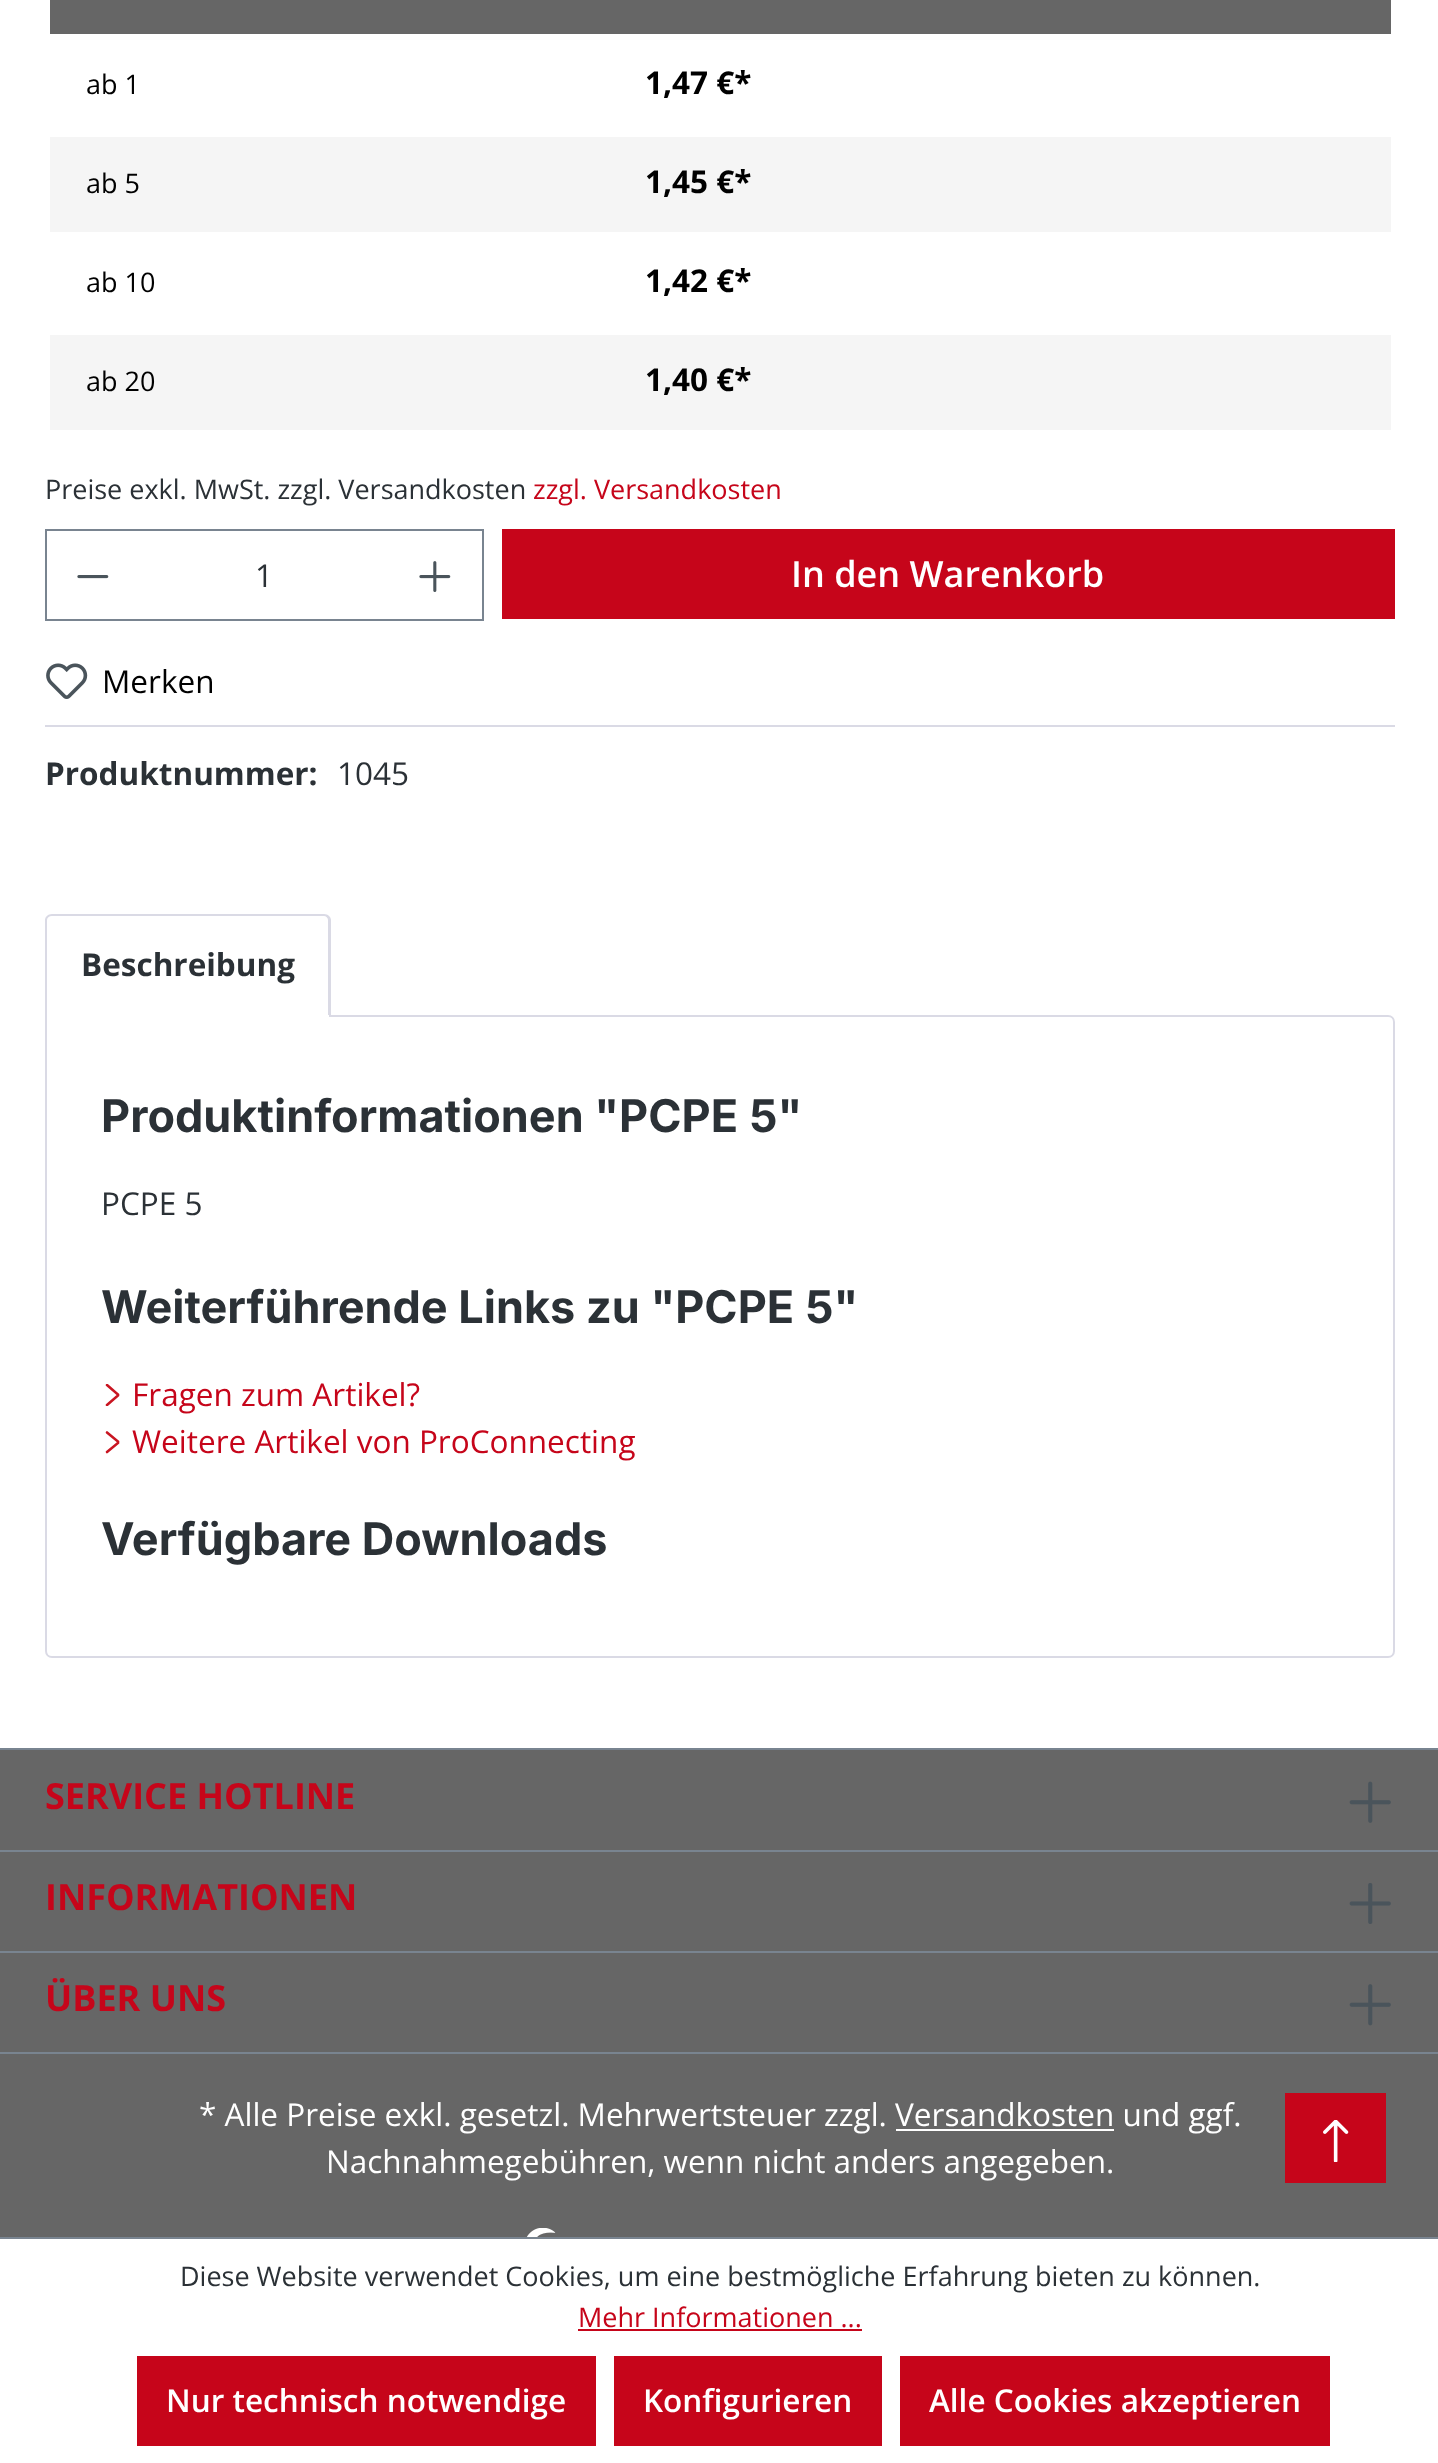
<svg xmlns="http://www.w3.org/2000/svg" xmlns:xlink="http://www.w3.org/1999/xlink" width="1438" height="2463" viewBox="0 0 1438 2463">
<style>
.cls-1{font:27px Open Sans;fill:#000000}
.cls-2{font:bold 31.5px Open Sans;fill:#000000}
.cls-3{font:27px Open Sans;fill:#2b3136}
.cls-4{font:27px Open Sans;fill:#c6051a}
.cls-5{font:31.5px Open Sans;fill:#2b3136}
.cls-6{font:600 36px Open Sans;fill:#ffffff}
.cls-7{font:31.5px Open Sans;fill:#000000}
.cls-8{font:bold 31.5px Open Sans;fill:#2b3136}
.cls-9{font:bold 45px Inter;fill:#2b3136}
.cls-10{font:31.5px Open Sans;fill:#c6051a}
.cls-11{font:bold 36px Open Sans;fill:#c6051a}
.cls-12{font:31.5px Open Sans;fill:#ffffff}
.cls-13{font:600 31.5px Open Sans;fill:#ffffff}
</style>
<defs>
<clipPath id="clip1"><rect x="101" y="1384" width="23" height="22"/></clipPath>
</defs>
<rect width="100%" height="100%" fill="#ffffff"/>
<rect fill="#666666" x="50" y="0" width="1341" height="34"/>
<rect fill="#f5f5f5" x="50" y="137" width="1341" height="95"/>
<rect fill="#f5f5f5" x="50" y="335" width="1341" height="95"/>
<rect fill="#798490" x="45" y="529" width="439" height="2"/>
<rect fill="#798490" x="45" y="619" width="347" height="2"/>
<rect fill="#798490" x="45" y="529" width="2" height="92"/>
<image xlink:href="image0.png" x="77" y="575" width="32" height="4"/>
<rect fill="#798490" x="482" y="529" width="2" height="92"/>
<rect fill="#798490" x="389" y="619" width="95" height="2"/>
<image xlink:href="image1.png" x="419" y="561" width="32" height="31"/>
<rect fill="#c6051a" x="502" y="529" width="893" height="90"/>
<rect fill="#dadae5" x="45" y="725" width="1350" height="2"/>
<image xlink:href="image2.png" x="46" y="663" width="42" height="36"/>
<path fill="#dadae5" fill-rule="evenodd" d="M52 914H324C328 914 331 917 331 920V1015H45V920C45 917 48 914 52 914ZM52 916H324C326 916 328 918 328 920V1015H47V920C47 918 49 916 52 916Z"/>
<path fill="none" stroke="#dadae5" stroke-width="2" d="M46 1016H1388C1391.5 1016 1394 1018.5 1394 1022V1651C1394 1654.5 1391.5 1657 1388 1657H52C48.5 1657 46 1654.5 46 1651Z"/>
<rect fill="#ffffff" x="47" y="1015" width="282" height="2"/>
<g clip-path="url(#clip1)">
<path fill="none" stroke="#c91521" stroke-width="2.6" stroke-linecap="round" d="M107 1385L118 1394.5C118 1395 118 1395 118 1395.5L107 1405"/>
</g>
<path fill="none" stroke="#c91521" stroke-width="2.6" stroke-linecap="round" d="M107 1432.5L118 1441.5C118 1442 118 1442.5 118 1443L107 1452"/>
<rect fill="#666666" x="0" y="1750" width="1438" height="487"/>
<rect fill="#798490" x="0" y="1748" width="1438" height="2"/>
<rect fill="#798490" x="0" y="1850" width="1438" height="2"/>
<image xlink:href="image3.png" x="1349" y="1781" width="42" height="42"/>
<rect fill="#798490" x="0" y="1951" width="1438" height="2"/>
<image xlink:href="image4.png" x="1349" y="1883" width="42" height="41"/>
<rect fill="#798490" x="0" y="2052" width="1438" height="2"/>
<image xlink:href="image5.png" x="1349" y="1984" width="42" height="42"/>
<rect fill="#ffffff" x="896" y="2129" width="218" height="2"/>
<image xlink:href="image6.png" x="526" y="2228" width="30" height="9"/>
<rect fill="#c6051a" x="1285" y="2093" width="101" height="90"/>
<image xlink:href="image7.png" x="1323" y="2120" width="26" height="42"/>
<rect fill="#798490" x="0" y="2237" width="1438" height="2"/>
<rect fill="#c6051a" x="578" y="2329" width="284" height="2"/>
<rect fill="#c6051a" x="137" y="2356" width="459" height="90"/>
<rect fill="#c6051a" x="614" y="2356" width="268" height="90"/>
<rect fill="#c6051a" x="900" y="2356" width="430" height="90"/>
<text class="cls-1" x="86" y="94">ab 1</text>
<text class="cls-2" x="645" y="94">1,47 €*</text>
<text class="cls-1" x="86" y="193">ab 5</text>
<text class="cls-2" x="645" y="193">1,45 €*</text>
<text class="cls-1" x="86" y="292">ab 10</text>
<text class="cls-2" x="645" y="292">1,42 €*</text>
<text class="cls-1" x="86" y="391">ab 20</text>
<text class="cls-2" x="645" y="391">1,40 €*</text>
<text class="cls-3" x="45" y="499">Preise exkl. MwSt. zzgl. Versandkosten</text>
<text class="cls-4" x="533" y="499">zzgl. Versandkosten</text>
<text class="cls-5" x="255" y="587">1</text>
<text class="cls-6" x="791" y="587">In den Warenkorb</text>
<text class="cls-7" x="102" y="693">Merken</text>
<text class="cls-8" x="45" y="785">Produktnummer:</text>
<text class="cls-5" x="337" y="785">1045</text>
<text class="cls-8" x="81" y="976">Beschreibung</text>
<text class="cls-9" x="101" y="1132">Produktinformationen "PCPE 5"</text>
<text class="cls-5" x="101" y="1215">PCPE 5</text>
<text class="cls-9" x="101" y="1323">Weiterführende Links zu "PCPE 5"</text>
<text class="cls-10"><tspan x="132" y="1406">Fragen zum Artikel?</tspan><tspan x="132" y="1453">Weitere Artikel von ProConnecting</tspan></text>
<text class="cls-9" x="101" y="1555">Verfügbare Downloads</text>
<text class="cls-11" x="45" y="1809">SERVICE HOTLINE</text>
<text class="cls-11" x="45" y="1910">INFORMATIONEN</text>
<text class="cls-11" x="45" y="2011">ÜBER UNS</text>
<text class="cls-12" x="199" y="2126">* Alle Preise exkl. gesetzl. Mehrwertsteuer zzgl. Versandkosten und ggf.</text>
<text class="cls-12" x="326" y="2173">Nachnahmegebühren, wenn nicht anders angegeben.</text>
<text class="cls-3" x="180" y="2286">Diese Website verwendet Cookies, um eine bestmögliche Erfahrung bieten zu können.</text>
<text class="cls-4" x="578" y="2327">Mehr Informationen ...</text>
<text class="cls-13" x="166" y="2412">Nur technisch notwendige</text>
<text class="cls-13" x="643" y="2412">Konfigurieren</text>
<text class="cls-13" x="929" y="2412">Alle Cookies akzeptieren</text>
</svg>
